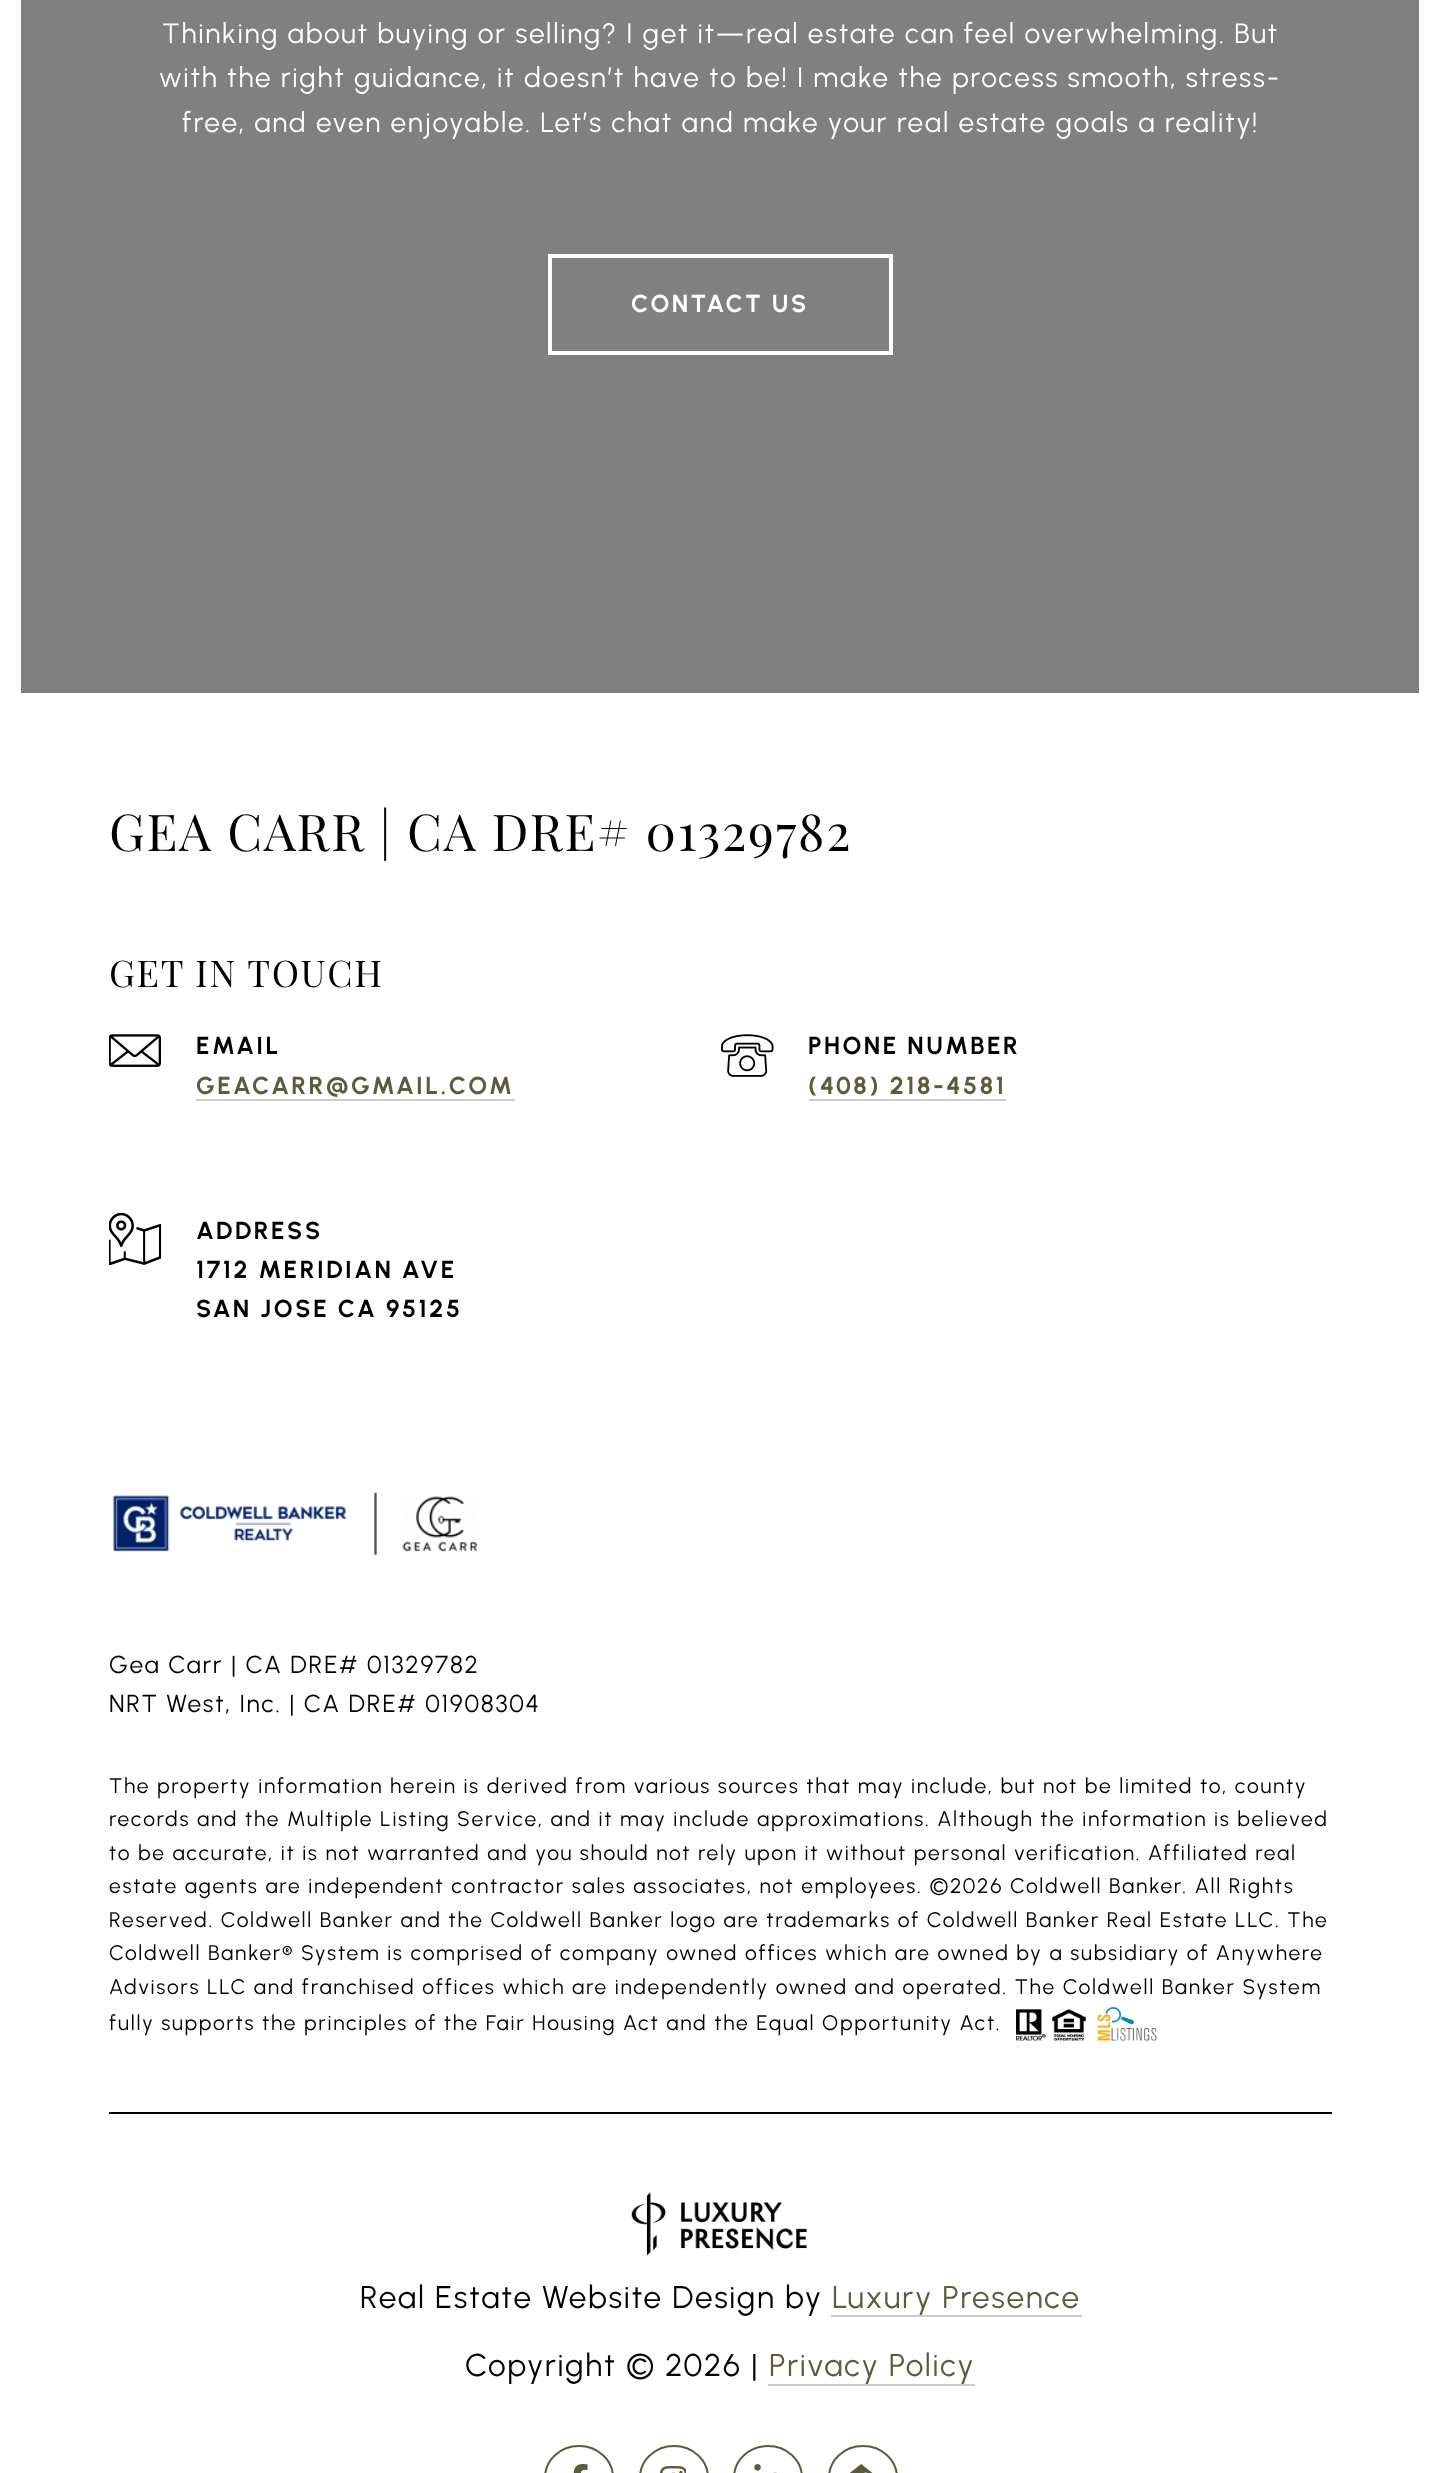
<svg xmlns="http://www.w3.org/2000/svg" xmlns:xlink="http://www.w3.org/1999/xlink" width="1439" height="2473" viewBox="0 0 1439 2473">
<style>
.cls-1{font:28px Urbanist;letter-spacing:1.75px;fill:#ffffff}
.cls-2{font:bold 24.5px Urbanist;letter-spacing:2.6px;fill:#ffffff}
.cls-3{font:50.75px Playfair Display;letter-spacing:1.75px;fill:#000000}
.cls-4{font:36.75px Playfair Display;letter-spacing:1.75px;fill:#000000}
.cls-5{font:bold 24.5px Urbanist;letter-spacing:2.6px;fill:#000000}
.cls-6{font:bold 24.5px Urbanist;letter-spacing:2.6px;fill:#5c5b3c}
.cls-7{font:24.5px Urbanist;letter-spacing:1.75px;fill:#000000}
.cls-8{font:21px Urbanist;letter-spacing:1.75px;fill:#000000}
.cls-9{font:31.5px Urbanist;letter-spacing:1.75px;fill:#000000}
.cls-10{font:31.5px Urbanist;letter-spacing:1.75px;fill:#5c5b3c}
</style>
<rect width="100%" height="100%" fill="#ffffff"/>
<rect fill="#808080" x="21" y="0" width="1398" height="693"/>
<rect fill="none" stroke="#ffffff" stroke-width="4" x="550" y="256" width="341" height="97"/>
<image xlink:href="image0.png" x="109" y="1034" width="52" height="33"/>
<rect fill="#cccccc" x="196" y="1099" width="319" height="2"/>
<image xlink:href="image1.png" x="721" y="1034" width="53" height="43"/>
<rect fill="#cccccc" x="809" y="1099" width="197" height="2"/>
<image xlink:href="image2.png" x="109" y="1213" width="53" height="52"/>
<image xlink:href="image3.png" x="113" y="1492" width="364" height="64"/>
<image xlink:href="image4.png" x="1016" y="2006" width="141" height="36"/>
<rect fill="#000000" x="109" y="2112" width="1223" height="2"/>
<image xlink:href="image5.png" x="631" y="2192" width="176" height="64"/>
<rect fill="#cccccc" x="768" y="2384" width="207" height="2"/>
<rect fill="none" stroke="#5c5b3c" stroke-width="2" x="545" y="2446" width="68" height="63" rx="34"/>
<image xlink:href="image6.png" x="573" y="2464" width="15" height="9"/>
<rect fill="none" stroke="#5c5b3c" stroke-width="2" x="640" y="2446" width="68" height="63" rx="34"/>
<image xlink:href="image7.png" x="660" y="2466" width="26" height="7"/>
<rect fill="none" stroke="#5c5b3c" stroke-width="2" x="734" y="2446" width="68" height="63" rx="34"/>
<image xlink:href="image8.png" x="754" y="2464" width="23" height="9"/>
<rect fill="none" stroke="#5c5b3c" stroke-width="2" x="829" y="2446" width="68" height="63" rx="34"/>
<image xlink:href="image9.png" x="849" y="2464" width="24" height="9"/>
<text class="cls-1" x="162" y="43">Thinking about buying or selling? I get it—real estate can feel overwhelming. But</text>
<text class="cls-1" x="159" y="87">with the right guidance, it doesn’t have to be! I make the process smooth, stress-</text>
<text class="cls-1" x="182" y="132">free, and even enjoyable. Let’s chat and make your real estate goals a reality!</text>
<text class="cls-2" x="631" y="312">CONTACT US</text>
<text class="cls-3" x="109" y="851">GEA CARR | CA DRE# 01329782</text>
<text class="cls-4" x="109" y="987">GET IN TOUCH</text>
<text class="cls-5" x="196" y="1054">EMAIL</text>
<text class="cls-6" x="196" y="1094">GEACARR@GMAIL.COM</text>
<text class="cls-5" x="808" y="1054">PHONE NUMBER</text>
<text class="cls-6" x="808" y="1094">(408) 218-4581</text>
<text class="cls-5"><tspan x="196" y="1239">ADDRESS</tspan><tspan x="196" y="1278">1712 MERIDIAN AVE</tspan><tspan x="196" y="1317">SAN JOSE CA 95125</tspan></text>
<text class="cls-7"><tspan x="109" y="1673">Gea Carr | CA DRE# 01329782</tspan><tspan x="109" y="1712">NRT West, Inc. | CA DRE# 01908304</tspan></text>
<text class="cls-8"><tspan x="109" y="1793">The property information herein is derived from various sources that may include, but not be limited to, county</tspan><tspan x="109" y="1826">records and the Multiple Listing Service, and it may include approximations. Although the information is believed</tspan><tspan x="109" y="1860">to be accurate, it is not warranted and you should not rely upon it without personal verification. Affiliated real</tspan><tspan x="109" y="1893">estate agents are independent contractor sales associates, not employees. ©2026 Coldwell Banker. All Rights</tspan><tspan x="109" y="1927">Reserved. Coldwell Banker and the Coldwell Banker logo are trademarks of Coldwell Banker Real Estate LLC. The</tspan><tspan x="109" y="1960">Coldwell Banker® System is comprised of company owned offices which are owned by a subsidiary of Anywhere</tspan><tspan x="109" y="1994">Advisors LLC and franchised offices which are independently owned and operated. The Coldwell Banker System</tspan><tspan x="109" y="2030">fully supports the principles of the Fair Housing Act and the Equal Opportunity Act.</tspan></text>
<text class="cls-9" x="360" y="2308">Real Estate Website Design by</text>
<text class="cls-10" x="832" y="2308">Luxury Presence</text>
<rect fill="#cccccc" x="831" y="2315" width="251" height="2"/>
<text class="cls-9" x="465" y="2376">Copyright © 2026 |</text>
<text class="cls-10" x="769" y="2376">Privacy Policy</text>
</svg>
